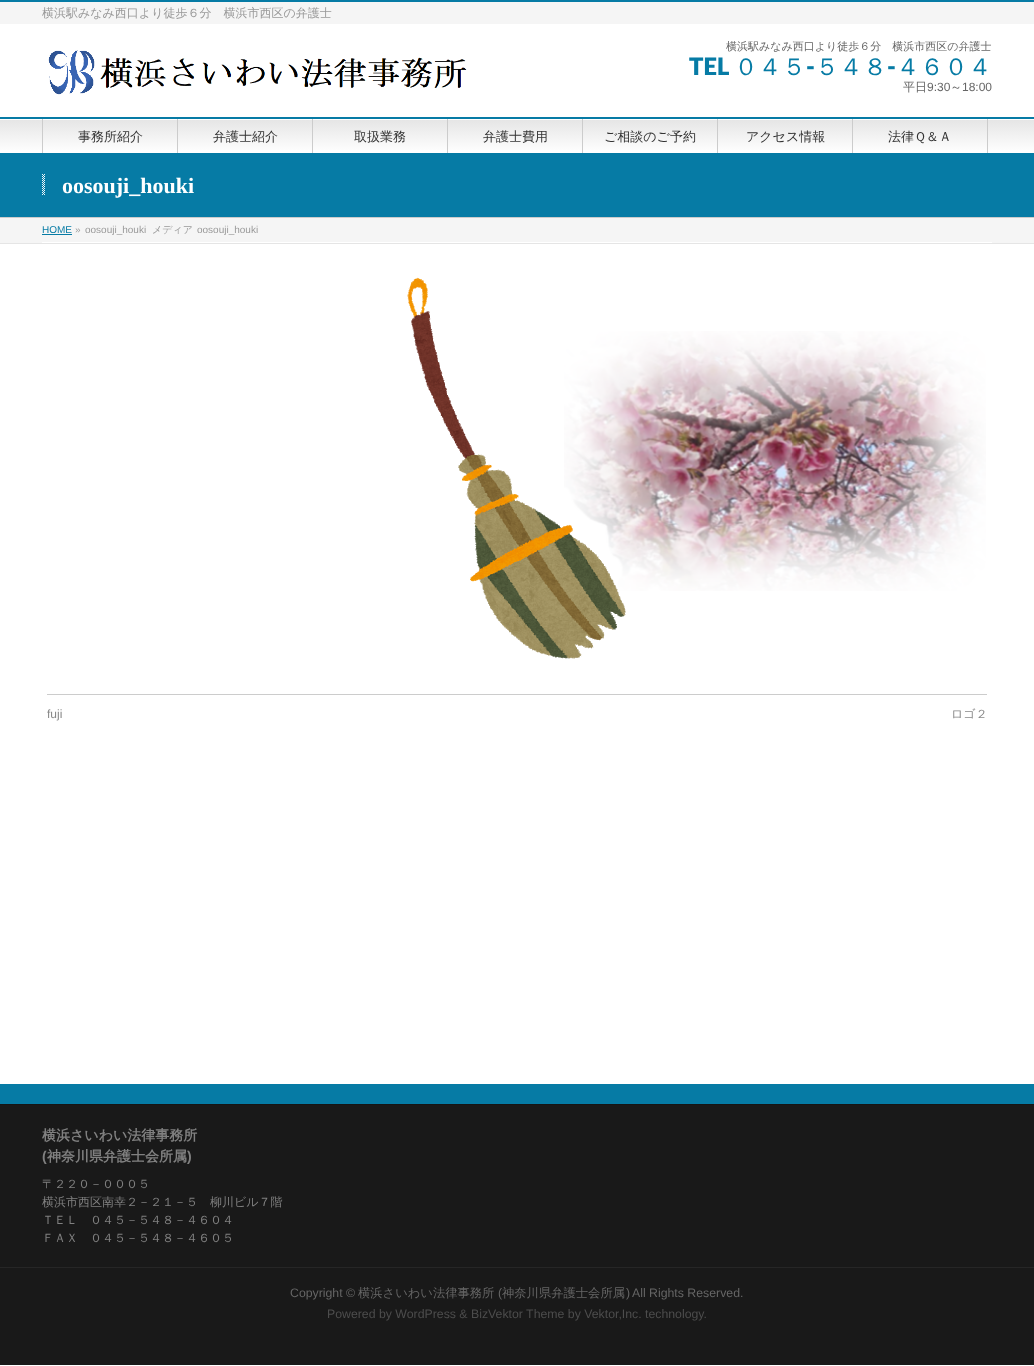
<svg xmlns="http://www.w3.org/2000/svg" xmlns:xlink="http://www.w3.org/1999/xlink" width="1034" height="1366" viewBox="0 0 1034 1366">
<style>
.cls-1{font:500 12px WenQuanYi Zen Hei;fill:#999999}
.cls-2{font:500 11px WenQuanYi Zen Hei;fill:#666666}
.cls-3{font:900 24px Lato;fill:#067ba5}
.cls-4{font:500 24px WenQuanYi Zen Hei;fill:#067ba5}
.cls-5{font:500 12px WenQuanYi Zen Hei;fill:#666666}
.cls-6{font:12px Liberation Sans;fill:#666666}
.cls-7{font:500 13px WenQuanYi Zen Hei;fill:#333333}
.cls-8{font:bold 22px Liberation Serif;fill:#ffffff}
.cls-9{font:10px Liberation Sans;fill:#067ba5}
.cls-10{font:10px Liberation Sans;fill:#999999}
.cls-11{font:500 10px WenQuanYi Zen Hei;fill:#999999}
.cls-12{font:12px Liberation Sans;fill:#888888}
.cls-13{font:500 12px WenQuanYi Zen Hei;fill:#888888}
.cls-14{font:bold 14px WenQuanYi Zen Hei;fill:#808080}
.cls-15{font:bold 14px Liberation Sans;fill:#808080}
.cls-16{font:500 12px WenQuanYi Zen Hei;fill:#808080}
.cls-17{font:12.3px Liberation Sans;fill:#666666}
.cls-18{font:500 12.3px WenQuanYi Zen Hei;fill:#666666}
.cls-19{font:12.3px Liberation Sans;fill:#4d4d4d}
</style>
<defs>
<linearGradient id="g1" gradientUnits="userSpaceOnUse" x1="517" y1="119" x2="517" y2="153"><stop offset="0" stop-color="#e5e5e5"/><stop offset="1" stop-color="#ffffff"/></linearGradient>
</defs>
<rect width="100%" height="100%" fill="#ffffff"/>
<image xlink:href="image0.png" x="564" y="331" width="422" height="260"/>
<rect fill="#f5f5f5" x="0" y="2" width="1034" height="22"/>
<rect fill="#067ba5" x="0" y="0" width="1034" height="2"/>
<image xlink:href="image1.png" x="48" y="50" width="419" height="45"/>
<rect fill="url(#g1)" x="0" y="120" width="1034" height="30"/>
<rect fill="#067ba5" x="0" y="117" width="1034" height="2"/>
<rect fill="#cccccc" x="42" y="119" width="1" height="34"/>
<rect fill="#cccccc" x="177" y="119" width="1" height="34"/>
<rect fill="#cccccc" x="312" y="119" width="1" height="34"/>
<rect fill="#cccccc" x="447" y="119" width="1" height="34"/>
<rect fill="#cccccc" x="582" y="119" width="1" height="34"/>
<rect fill="#cccccc" x="717" y="119" width="1" height="34"/>
<rect fill="#cccccc" x="852" y="119" width="1" height="34"/>
<rect fill="#cccccc" x="987" y="119" width="1" height="34"/>
<rect fill="#067ba5" x="0" y="153" width="1034" height="64"/>
<rect fill="#cccccc" x="0" y="217" width="1034" height="1"/>
<image xlink:href="image2.png" x="42" y="174" width="3" height="21"/>
<rect fill="#f5f5f5" x="0" y="218" width="1034" height="25"/>
<rect fill="#e5e5e5" x="0" y="243" width="1034" height="1"/>
<rect fill="#ffffff" x="42" y="242" width="950" height="1"/>
<rect fill="#067ba5" x="42" y="234" width="30" height="1"/>
<image xlink:href="image3.png" x="407" y="277" width="219" height="382"/>
<rect fill="#cccccc" x="47" y="694" width="940" height="1"/>
<rect fill="#067ba5" x="0" y="1084" width="1034" height="20"/>
<rect fill="#191919" x="0" y="1105" width="1034" height="162"/>
<rect fill="#151515" x="0" y="1104" width="1034" height="1"/>
<rect fill="#191919" x="0" y="1268" width="1034" height="97"/>
<rect fill="#262626" x="0" y="1267" width="1034" height="1"/>
<text class="cls-1" x="42" y="17">横浜駅みなみ西口より徒歩６分　横浜市西区の弁護士</text>
<text class="cls-2" x="726" y="50">横浜駅みなみ西口より徒歩６分　横浜市西区の弁護士</text>
<text class="cls-3" x="689" y="75">TEL</text>
<text class="cls-4" x="734" y="75">０４５</text>
<text class="cls-3" x="806" y="75">-</text>
<text class="cls-4" x="815" y="75">５４８</text>
<text class="cls-3" x="887" y="75">-</text>
<text class="cls-4" x="896" y="75">４６０４</text>
<text class="cls-5" x="903" y="91">平日</text>
<text class="cls-6" x="927" y="91">9:30</text>
<text class="cls-5" x="950" y="91">～</text>
<text class="cls-6" x="962" y="91">18:00</text>
<text class="cls-7" x="78" y="141">事務所紹介</text>
<text class="cls-7" x="213" y="141">弁護士紹介</text>
<text class="cls-7" x="354" y="141">取扱業務</text>
<text class="cls-7" x="483" y="141">弁護士費用</text>
<text class="cls-7" x="604" y="141">ご相談のご予約</text>
<text class="cls-7" x="746" y="141">アクセス情報</text>
<text class="cls-7" x="888" y="141">法律Ｑ＆Ａ</text>
<text class="cls-8" x="62" y="193">oosouji_houki</text>
<text class="cls-9" x="42" y="233">HOME</text>
<text class="cls-10" x="75" y="233">»</text>
<text class="cls-10" x="85" y="233">oosouji_houki</text>
<text class="cls-11" x="152" y="233">メディア</text>
<text class="cls-10" x="197" y="233">oosouji_houki</text>
<text class="cls-12" x="47" y="718">fuji</text>
<text class="cls-13" x="951" y="718">ロゴ２</text>
<text class="cls-14" x="42" y="1140">横浜さいわい法律事務所</text>
<text class="cls-15" x="42" y="1161">(</text>
<text class="cls-14" x="47" y="1161">神奈川県弁護士会所属</text>
<text class="cls-15" x="187" y="1161">)</text>
<text class="cls-16"><tspan x="42" y="1188">〒２２０－０００５</tspan><tspan x="42" y="1206">横浜市西区南幸２－２１－５　柳川ビル７階</tspan><tspan x="42" y="1224">ＴＥＬ　０４５－５４８－４６０４</tspan><tspan x="42" y="1242">ＦＡＸ　０４５－５４８－４６０５</tspan></text>
<text class="cls-17" x="290" y="1297">Copyright ©</text>
<text class="cls-18" x="358" y="1297">横浜さいわい法律事務所</text>
<text class="cls-17" x="498" y="1297">(</text>
<text class="cls-18" x="502" y="1297">神奈川県弁護士会所属</text>
<text class="cls-17" x="626" y="1297">)</text>
<text class="cls-17" x="632" y="1297">All Rights Reserved.</text>
<text class="cls-19" x="327" y="1318">Powered by WordPress &amp; BizVektor Theme by Vektor,Inc. technology.</text>
</svg>
